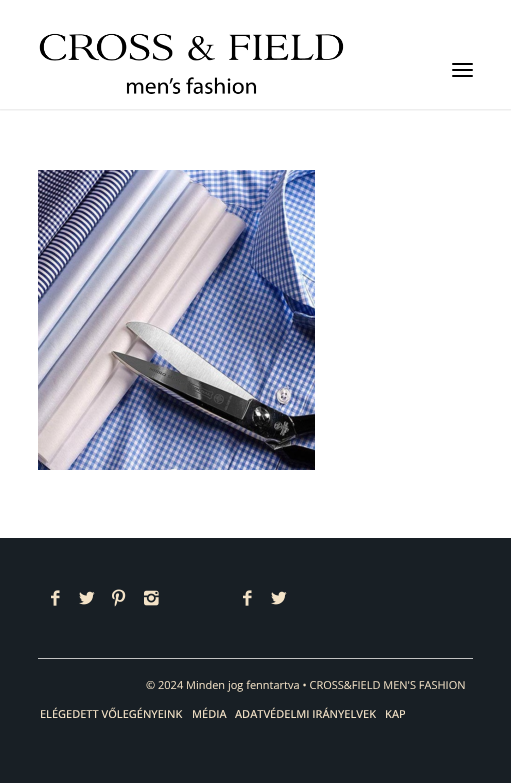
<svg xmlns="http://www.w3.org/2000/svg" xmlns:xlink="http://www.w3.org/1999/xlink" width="511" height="783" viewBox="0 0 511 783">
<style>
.cls-1{font:11px Open Sans;fill:#f3e2c7}
.cls-2{font:500 11px Open Sans;fill:#f3e2c7}
</style>
<defs>
<clipPath id="clip1"><rect x="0" y="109" width="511" height="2"/></clipPath>
<clipPath id="clip2"><rect x="0" y="695" width="405" height="52"/></clipPath>
</defs>
<rect width="100%" height="100%" fill="#181f25"/>
<rect fill="#ffffff" x="0" y="0" width="511" height="538"/>
<g clip-path="url(#clip1)">
<rect fill="#000000" fill-opacity="0.1" filter="blur(1px)" x="-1" y="-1" width="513" height="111"/>
</g>
<image xlink:href="image0.png" x="39" y="33" width="305" height="61"/>
<rect fill="#000000" x="452" y="69" width="21" height="2" rx="1"/>
<rect fill="#000000" x="452" y="63" width="21" height="2" rx="1"/>
<rect fill="#000000" x="452" y="75" width="21" height="2" rx="1"/>
<image xlink:href="image1.png" x="38" y="170" width="277" height="300"/>
<image xlink:href="image2.png" x="51" y="590" width="9" height="16"/>
<image xlink:href="image3.png" x="79" y="591" width="16" height="14"/>
<image xlink:href="image4.png" x="112" y="589" width="14" height="18"/>
<image xlink:href="image5.png" x="144" y="590" width="15" height="16"/>
<image xlink:href="image2.png" x="243" y="590" width="9" height="16"/>
<image xlink:href="image3.png" x="271" y="591" width="16" height="14"/>
<rect fill="#c3c3c3" x="38" y="658" width="435" height="1"/>
<text class="cls-1" x="146" y="689">© 2024 Minden jog fenntartva • CROSS&amp;FIELD MEN'S FASHION</text>
<text class="cls-2" x="40" y="718">ELÉGEDETT VŐLEGÉNYEINK</text>
<text class="cls-2" x="192" y="718">MÉDIA</text>
<text class="cls-2" x="235" y="718">ADATVÉDELMI IRÁNYELVEK</text>
<g clip-path="url(#clip2)">
<text class="cls-2" x="385" y="718">KAP</text>
</g>
</svg>
